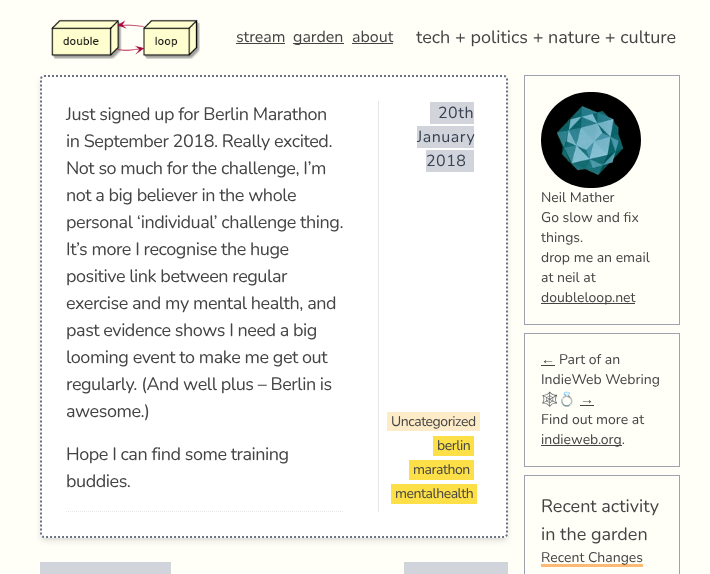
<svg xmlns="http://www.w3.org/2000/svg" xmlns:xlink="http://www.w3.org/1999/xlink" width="710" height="574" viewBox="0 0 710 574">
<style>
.cls-1{font:16px Nunito;fill:#444444}
.cls-2{font:18px Nunito;fill:#444444}
.cls-3{font:18px Nunito;letter-spacing:-0.45px;fill:#444444}
.cls-4{font:16px Nunito;letter-spacing:0.5px;fill:#374151}
.cls-5{font:14px Nunito;letter-spacing:-0.45px;fill:#444444}
.cls-6{font:14px Nunito;fill:#444444}
.cls-7{font:14px Liberation Sans;fill:#444444}
.cls-8{font:14px Noto Color Emoji;fill:#444444}
</style>
<rect width="100%" height="100%" fill="#fffff8"/>
<image xlink:href="image0.png" x="51" y="19" width="149" height="40"/>
<rect fill="#444444" x="236" y="43" width="49" height="1"/>
<rect fill="#444444" x="293" y="43" width="51" height="1"/>
<rect fill="#444444" x="352" y="43" width="41" height="1"/>
<rect fill="#000000" fill-opacity="0.1" filter="blur(2px)" x="42" y="79" width="464" height="459" rx="2"/>
<rect fill="#000000" fill-opacity="0.1" filter="blur(3px)" x="41" y="80" width="466" height="461" rx="3"/>
<rect fill="#ffffff" x="40" y="75" width="468" height="463" rx="4"/>
<path fill="none" stroke="#6b7280" stroke-width="2" stroke-dasharray="2 2" d="M44 76H504C505.5 76 507 77.5 507 79V534C507 535.5 505.5 537 504 537H44C42.5 537 41 535.5 41 534V79C41 77.5 42.5 76 44 76Z"/>
<path fill="none" stroke="#e5e7eb" stroke-dasharray="1 1" d="M66 511.5H343"/>
<rect fill="#e5e7eb" x="378" y="101" width="1" height="411"/>
<rect fill="#d1d5db" x="430" y="102" width="44" height="22"/>
<rect fill="#d1d5db" x="417" y="126" width="57" height="22"/>
<rect fill="#d1d5db" x="426" y="150" width="48" height="22"/>
<rect fill="#feebc8" x="387" y="412" width="93" height="19"/>
<rect fill="#fde047" x="433" y="436" width="41" height="20"/>
<rect fill="#fde047" x="409" y="460" width="65" height="20"/>
<rect fill="#fde047" x="391" y="484" width="86" height="20"/>
<rect fill="#d1d5db" x="40" y="562" width="131" height="12"/>
<rect fill="#d1d5db" x="404" y="562" width="104" height="12"/>
<rect fill="none" stroke="#9ca3af" x="524.5" y="75.5" width="155" height="249"/>
<image xlink:href="image1.png" x="541" y="92" width="100" height="96"/>
<rect fill="#444444" x="541" y="303" width="94" height="1"/>
<rect fill="none" stroke="#9ca3af" x="524.5" y="333.5" width="155" height="133"/>
<rect fill="#444444" x="541" y="365" width="14" height="1"/>
<rect fill="#444444" x="580" y="405" width="14" height="1"/>
<rect fill="#444444" x="541" y="445" width="81" height="1"/>
<rect fill="none" stroke="#9ca3af" x="524.5" y="475.5" width="155" height="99"/>
<rect fill="#fdba74" x="541" y="564" width="102" height="3"/>
<text class="cls-1" x="236" y="42">stream</text>
<text class="cls-1" x="293" y="42">garden</text>
<text class="cls-1" x="352" y="42">about</text>
<text class="cls-2" x="416" y="43">tech + politics + nature + culture</text>
<text class="cls-3"><tspan x="66" y="120">Just signed up for Berlin Marathon</tspan><tspan x="66" y="147">in September 2018. Really excited.</tspan><tspan x="66" y="174">Not so much for the challenge, I’m</tspan><tspan x="66" y="201">not a big believer in the whole</tspan><tspan x="66" y="228">personal ‘individual’ challenge thing.</tspan><tspan x="66" y="255">It’s more I recognise the huge</tspan><tspan x="66" y="282">positive link between regular</tspan><tspan x="66" y="309">exercise and my mental health, and</tspan><tspan x="66" y="336">past evidence shows I need a big</tspan><tspan x="66" y="363">looming event to make me get out</tspan><tspan x="66" y="390">regularly. (And well plus – Berlin is</tspan><tspan x="66" y="417">awesome.)</tspan></text>
<text class="cls-3"><tspan x="66" y="460">Hope I can find some training</tspan><tspan x="66" y="487">buddies.</tspan></text>
<text class="cls-4" x="438" y="118">20th</text>
<text class="cls-4" x="417" y="142">January</text>
<text class="cls-4" x="426" y="166">2018</text>
<text class="cls-5" x="391" y="426">Uncategorized</text>
<text class="cls-5" x="437" y="450">berlin</text>
<text class="cls-5" x="413" y="474">marathon</text>
<text class="cls-5" x="395" y="498">mentalhealth</text>
<text class="cls-6"><tspan x="541" y="202">Neil Mather</tspan><tspan x="541" y="222">Go slow and fix</tspan><tspan x="541" y="242">things.</tspan><tspan x="541" y="262">drop me an email</tspan><tspan x="541" y="282">at neil at</tspan><tspan x="541" y="302">doubleloop.net</tspan></text>
<text class="cls-7" x="541" y="364">←</text>
<text class="cls-6" x="559" y="364">Part of an</text>
<text class="cls-6" x="541" y="384">IndieWeb Webring</text>
<text class="cls-8" x="541" y="404">🕸💍</text>
<text class="cls-7" x="580" y="404">→</text>
<text class="cls-6"><tspan x="541" y="424">Find out more at</tspan><tspan x="541" y="444">indieweb.org.</tspan></text>
<text class="cls-2"><tspan x="541" y="512">Recent activity</tspan><tspan x="541" y="540">in the garden</tspan></text>
<text class="cls-6" x="541" y="562">Recent Changes</text>
</svg>
